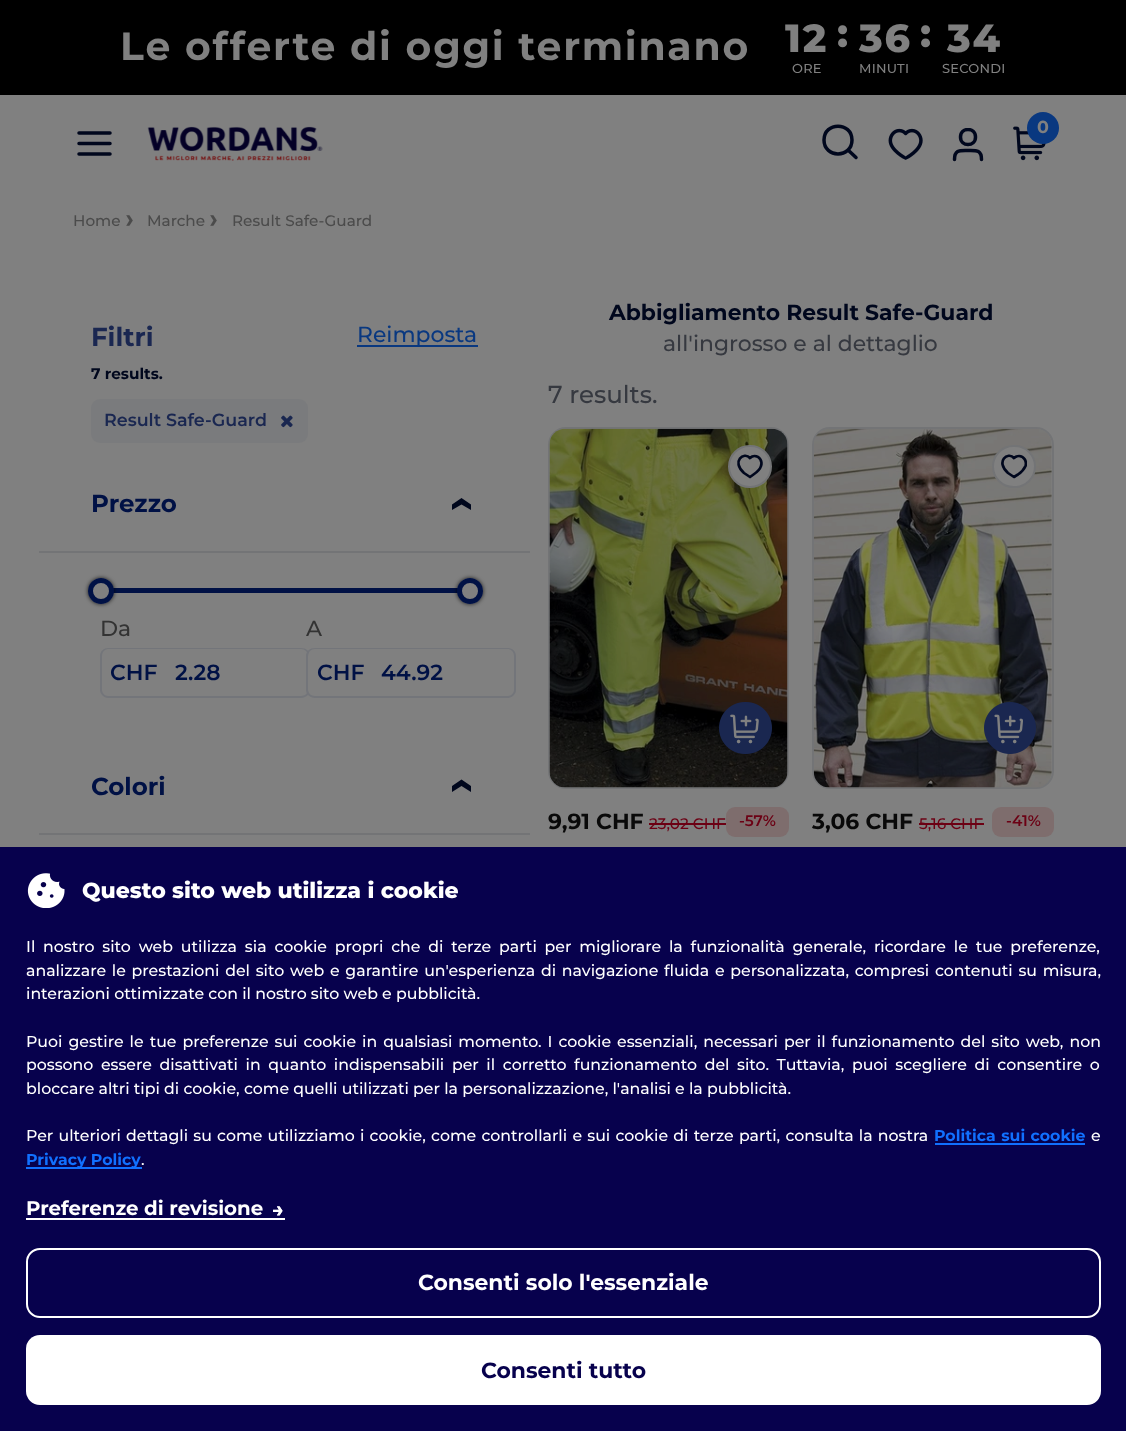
<svg xmlns="http://www.w3.org/2000/svg" xmlns:xlink="http://www.w3.org/1999/xlink" width="1126" height="1431" viewBox="0 0 1126 1431">
<style>
.cls-1{font:bold 39.4px Montserrat;letter-spacing:1.75px;fill:#808080}
.cls-2{font:800 39.4px Montserrat;letter-spacing:1.75px;fill:#808080}
.cls-3{font:500 13px 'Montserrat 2';letter-spacing:0.25px;fill:#808080}
.cls-4{font:bold 17.5px Montserrat;fill:#808080}
.cls-5{font:500 15.25px Montserrat;fill:#4b4b4b}
.cls-6{font:bold 26px Montserrat;fill:#1a2751}
.cls-7{font:500 21.9px 'Montserrat 2';fill:#093880}
.cls-8{font:bold 15.25px Montserrat;fill:#00071d}
.cls-9{font:600 17.5px Montserrat;fill:#1a2751}
.cls-10{font:bold 24.5px Montserrat;fill:#001145}
.cls-11{font:500 21.9px 'Montserrat 2';fill:#333333}
.cls-12{font:600 21.9px Montserrat;fill:#001145}
.cls-13{font:bold 21.9px Montserrat;fill:#00071d}
.cls-14{font:500 21.9px 'Montserrat 2';fill:#363940}
.cls-15{font:500 24.5px 'Montserrat 2';fill:#363940}
.cls-16{font:bold 21.9px Montserrat;fill:#090909}
.cls-17{font:500 15.25px 'Montserrat 2';fill:#6c0014}
.cls-18{font:600 15.25px Montserrat;fill:#6c0014}
.cls-19{font:800 21.9px Montserrat;fill:#ffffff}
.cls-20{font:500 15.75px 'Montserrat 2';fill:#ffffff}
.cls-21{font:bold 15.75px Montserrat;fill:#1170ff}
.cls-22{font:bold 19.75px Montserrat;fill:#ffffff}
.cls-23{font:bold 21.9px Montserrat;fill:#ffffff}
.cls-24{font:bold 21.9px Montserrat;fill:#07014d}
</style>
<defs>
<clipPath id="clip1"><rect x="952" y="128" width="32" height="35"/></clipPath>
<clipPath id="clip2"><path d="M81 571H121V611H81ZM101 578C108 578 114 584 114 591C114 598 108 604 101 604C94 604 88 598 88 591C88 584 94 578 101 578Z" clip-rule="evenodd"/></clipPath>
<clipPath id="clip3"><path d="M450 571H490V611H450ZM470 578C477 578 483 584 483 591C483 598 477 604 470 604C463 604 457 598 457 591C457 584 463 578 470 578Z" clip-rule="evenodd"/></clipPath>
<clipPath id="clip4"><rect x="1001" y="453" width="26" height="27"/></clipPath>
</defs>
<rect width="100%" height="100%" fill="#808080"/>
<rect fill="#000000" x="0" y="0" width="1126" height="95"/>
<path fill="none" stroke="#00071d" stroke-width="3.5" stroke-linecap="round" stroke-linejoin="round" d="M79 143.5H110M79 133H110M79 154H110"/>
<image xlink:href="image0.png" x="147" y="126" width="176" height="35"/>
<path fill="none" stroke="#00071d" stroke-width="3.5" stroke-linecap="round" stroke-linejoin="round" d="M856 157.5L848 150M852 140C852 158.5 824 158.5 824 140C824 121.5 852 121.5 852 140Z"/>
<image xlink:href="image1.png" x="888" y="128" width="35" height="32"/>
<g clip-path="url(#clip1)">
<path fill="none" stroke="#00071d" stroke-width="3.5" stroke-linecap="round" stroke-linejoin="round" d="M981.5 159.5C981.5 149.5 976 150.5 968 150.5C960 150.5 954.5 149.5 954.5 159.5M975.5 137C975.5 147 960.5 147 960.5 137C960.5 127 975.5 127 975.5 137Z"/>
</g>
<image xlink:href="image2.png" x="1013" y="126" width="34" height="35"/>
<circle fill="#093880" cx="1043" cy="128" r="16"/>
<image xlink:href="image3.png" x="126" y="215" width="7" height="11"/>
<image xlink:href="image3.png" x="210" y="215" width="7" height="11"/>
<rect fill="#093880" x="357" y="345" width="121" height="2"/>
<rect fill="#7a7b7d" x="91" y="399" width="217" height="44" rx="9"/>
<image xlink:href="image4.png" x="281" y="415" width="12" height="13"/>
<path fill="#00071d" fill-rule="evenodd" d="M471 510V504.5L461.5 498L452 504.5V510L461.5 504.5Z"/>
<rect fill="#737476" x="39" y="551" width="491" height="2"/>
<rect fill="#001145" x="113" y="588" width="345" height="5"/>
<g clip-path="url(#clip2)">
<rect fill="#000000" fill-opacity="0.8" filter="blur(2px)" x="88" y="578" width="26" height="26" rx="13"/>
</g>
<circle fill="#808080" stroke="#001145" stroke-width="5" cx="101" cy="591" r="10.5"/>
<g clip-path="url(#clip3)">
<rect fill="#000000" fill-opacity="0.8" filter="blur(2px)" x="457" y="578" width="26" height="26" rx="13"/>
</g>
<circle fill="#808080" stroke="#001145" stroke-width="5" cx="470" cy="591" r="10.5"/>
<path fill="#73757a" fill-rule="evenodd" d="M108 648H166V698H108C104 698 100 694 100 690V656C100 651 104 648 108 648ZM108 649H166V696H108C105 696 102 693 102 690V656C102 652 105 649 108 649Z"/>
<path fill="#73757a" fill-rule="evenodd" d="M166 648H301C306 648 310 651 310 656V690C310 694 306 698 301 698H166ZM166 649H301C305 649 308 652 308 656V690C308 693 305 696 301 696H166Z"/>
<path fill="#808080" d="M315 649H373V697H315C311 697 308 694 308 690V656C308 652 311 649 315 649Z"/>
<path fill="#73757a" fill-rule="evenodd" d="M315 648H373V698H315C310 698 306 694 306 690V656C306 651 310 648 315 648ZM315 649H373V696H315C311 696 308 693 308 690V656C308 652 311 649 315 649Z"/>
<path fill="#73757a" fill-rule="evenodd" d="M373 648H508C512 648 516 651 516 656V690C516 694 512 698 508 698H373ZM373 649H508C511 649 514 652 514 656V690C514 693 511 696 508 696H373Z"/>
<path fill="#00071d" fill-rule="evenodd" d="M471 792V786L461.5 779.5L452 786V792L461.5 786Z"/>
<rect fill="#737476" x="39" y="833" width="491" height="2"/>
<rect fill="none" stroke="#737476" stroke-width="2" x="549" y="428" width="239" height="360" rx="17"/>
<image xlink:href="image5.png" x="549" y="428" width="239" height="360"/>
<rect fill="#808080" stroke="#737476" stroke-width="2" x="729" y="446" width="42" height="41" rx="20.5"/>
<path fill="none" stroke="#00071d" stroke-width="2.7" stroke-linecap="round" stroke-linejoin="round" d="M754.5 456C760 456 762.5 461.5 761 466C760 469.5 756.5 472.5 753.5 474.5L750 477L744 473C731 461.5 744 451 750 458C751 457 752.5 456 754.5 456Z"/>
<image xlink:href="image6.png" x="719" y="702" width="53" height="52"/>
<rect fill="#6c0014" x="649" y="823" width="77" height="2"/>
<rect fill="#7e6d6d" x="726" y="807" width="63" height="30" rx="9"/>
<rect fill="none" stroke="#737476" stroke-width="2" x="813" y="428" width="240" height="360" rx="17"/>
<image xlink:href="image7.png" x="813" y="428" width="239" height="360"/>
<rect fill="#808080" stroke="#737476" stroke-width="2" x="993" y="446" width="42" height="41" rx="20.5"/>
<g clip-path="url(#clip4)">
<path fill="none" stroke="#00071d" stroke-width="2.7" stroke-linecap="round" stroke-linejoin="round" d="M1019 456C1024 456 1027 461.5 1025.5 466C1024 469.5 1021 472.5 1018 474.5L1014 477L1008 473C995 461.5 1008 451 1014 458C1015 457 1016.5 456 1019 456Z"/>
</g>
<image xlink:href="image8.png" x="984" y="702" width="52" height="52"/>
<rect fill="#6c0014" x="919" y="823" width="65" height="2"/>
<rect fill="#7e6d6d" x="992" y="807" width="62" height="30" rx="9"/>
<rect fill="#07014d" x="0" y="847" width="1126" height="584"/>
<image xlink:href="image9.png" x="27" y="873" width="38" height="35"/>
<rect fill="#1170ff" x="935" y="1143" width="150" height="2"/>
<rect fill="#1170ff" x="26" y="1167" width="116" height="2"/>
<image xlink:href="image10.png" x="273" y="1206" width="10" height="10"/>
<rect fill="#ffffff" x="26" y="1218" width="259" height="2"/>
<rect fill="none" stroke="#ffffff" stroke-width="2" x="27" y="1249" width="1073" height="68" rx="13"/>
<rect fill="#ffffff" x="26" y="1335" width="1075" height="70" rx="14"/>
<text class="cls-1" x="120" y="60">Le offerte di oggi terminano</text>
<text class="cls-2" x="785" y="52">12</text>
<text class="cls-3" x="792" y="73">ORE</text>
<text class="cls-2" x="837" y="47">:</text>
<text class="cls-2" x="859" y="52">36</text>
<text class="cls-3" x="859" y="73">MINUTI</text>
<text class="cls-2" x="920" y="47">:</text>
<text class="cls-2" x="947" y="52">34</text>
<text class="cls-3" x="942" y="73">SECONDI</text>
<text class="cls-4" x="1037" y="133">0</text>
<text class="cls-5" x="73" y="226">Home</text>
<text class="cls-5" x="147" y="226">Marche</text>
<text class="cls-5" x="232" y="226">Result Safe-Guard</text>
<text class="cls-6" x="91" y="346">Filtri</text>
<text class="cls-7" x="357" y="342">Reimposta</text>
<text class="cls-8" x="91" y="379">7 results.</text>
<text class="cls-9" x="104" y="426">Result Safe-Guard</text>
<text class="cls-10" x="91" y="512">Prezzo</text>
<text class="cls-11" x="100" y="636">Da</text>
<text class="cls-12" x="110" y="680">CHF</text>
<text class="cls-12" x="175" y="680">2.28</text>
<text class="cls-11" x="306" y="636">A</text>
<text class="cls-12" x="317" y="680">CHF</text>
<text class="cls-12" x="381" y="680">44.92</text>
<text class="cls-10" x="91" y="795">Colori</text>
<text class="cls-13" x="609" y="320">Abbigliamento Result Safe-Guard</text>
<text class="cls-14" x="663" y="351">all'ingrosso e al dettaglio</text>
<text class="cls-15" x="548" y="403">7 results.</text>
<text class="cls-16" x="548" y="829">9,91 CHF</text>
<text class="cls-17" x="649" y="829">23,02 CHF</text>
<text class="cls-18" x="739" y="826">-57%</text>
<text class="cls-16" x="812" y="829">3,06 CHF</text>
<text class="cls-17" x="919" y="829">5,16 CHF</text>
<text class="cls-18" x="1006" y="826">-41%</text>
<text class="cls-19" x="82" y="898">Questo sito web utilizza i cookie</text>
<text class="cls-20"><tspan x="26" y="952" word-spacing="3.6">Il nostro sito web utilizza sia cookie propri che di terze parti per migliorare la funzionalità generale, ricordare le tue preferenze,</tspan><tspan x="26" y="976" word-spacing="1.5">analizzare le prestazioni del sito web e garantire un'esperienza di navigazione fluida e personalizzata, compresi contenuti su misura,</tspan><tspan x="26" y="999">interazioni ottimizzate con il nostro sito web e pubblicità.</tspan></text>
<text class="cls-20"><tspan x="26" y="1047" word-spacing="1.75">Puoi gestire le tue preferenze sui cookie in qualsiasi momento. I cookie essenziali, necessari per il funzionamento del sito web, non</tspan><tspan x="26" y="1070" word-spacing="3.4">possono essere disattivati in quanto indispensabili per il corretto funzionamento del sito. Tuttavia, puoi scegliere di consentire o</tspan><tspan x="26" y="1094">bloccare altri tipi di cookie, come quelli utilizzati per la personalizzazione, l'analisi e la pubblicità.</tspan></text>
<text class="cls-20" x="26" y="1141" word-spacing="1">Per ulteriori dettagli su come utilizziamo i cookie, come controllarli e sui cookie di terze parti, consulta la nostra</text>
<text class="cls-21" x="934" y="1141" word-spacing="1">Politica sui cookie</text>
<text class="cls-20" x="1091" y="1141">e</text>
<text class="cls-21" x="26" y="1165">Privacy Policy</text>
<text class="cls-20" x="141" y="1165">.</text>
<text class="cls-22" x="26" y="1215">Preferenze di revisione</text>
<text class="cls-23" x="418" y="1290">Consenti solo l'essenziale</text>
<text class="cls-24" x="481" y="1378">Consenti tutto</text>
</svg>
